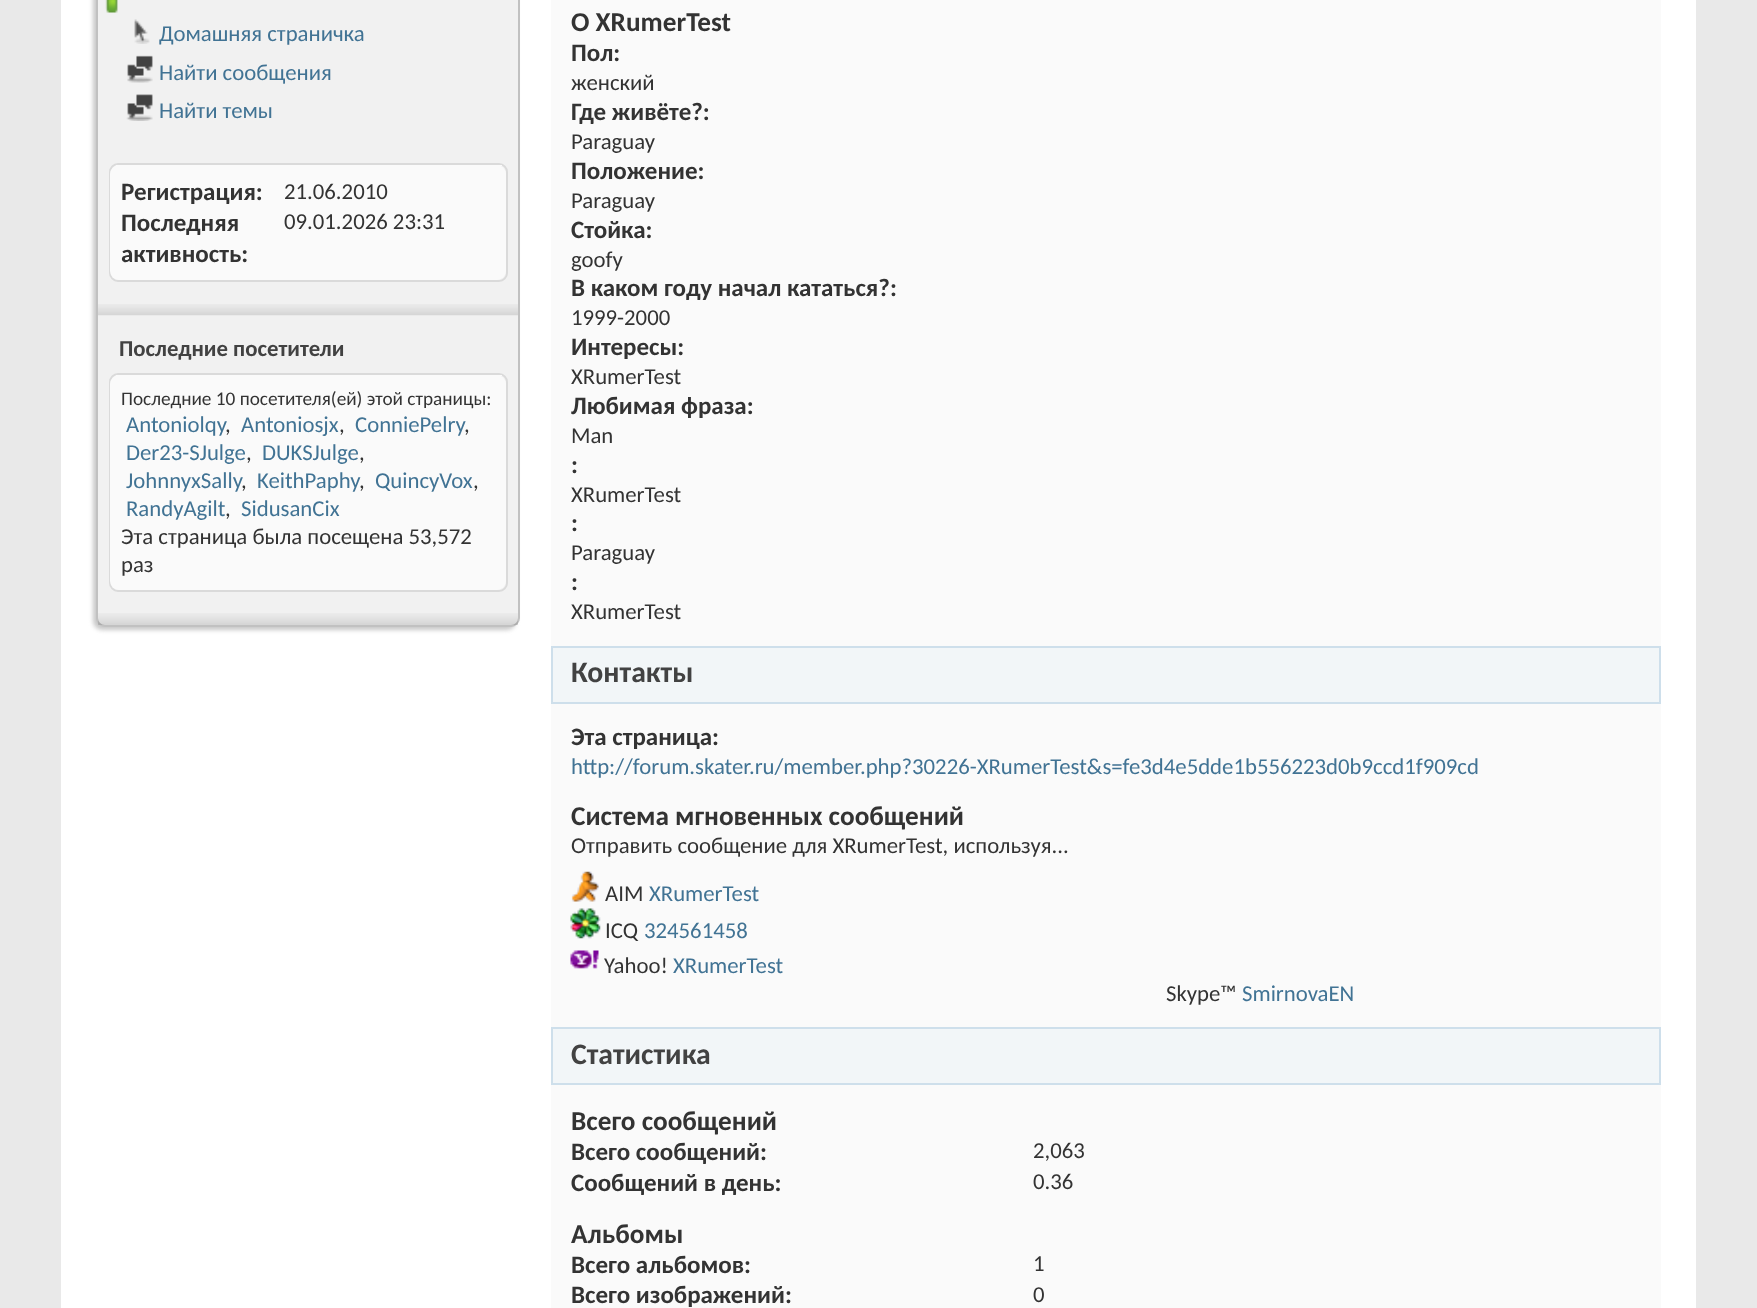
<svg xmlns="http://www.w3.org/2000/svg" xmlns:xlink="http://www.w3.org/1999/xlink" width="1757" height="1308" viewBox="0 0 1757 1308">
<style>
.cls-1{font:22.75px Carlito;fill:#417394}
.cls-2{font:bold 25px Carlito;fill:#333333}
.cls-3{font:22.75px Carlito;fill:#333333}
.cls-4{font:bold 22.75px Carlito;fill:#424242}
.cls-5{font:19.25px Carlito;fill:#333333}
.cls-6{font:bold 27.25px Carlito;fill:#333333}
.cls-7{font:bold 29.75px Carlito;fill:#424242}
</style>
<rect width="100%" height="100%" fill="#e9e9e9"/>
<rect fill="#ffffff" x="61" y="0" width="1635" height="1308"/>
<rect fill="#c8c8c8" filter="blur(2px)" x="93" y="-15" width="423" height="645" rx="9"/>
<rect fill="#f1f1f1" stroke="#c1c1c1" stroke-width="2" x="97" y="-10" width="422" height="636" rx="8"/>
<image xlink:href="image0.png" x="105" y="0" width="13" height="13"/>
<image xlink:href="image1.png" x="134" y="19" width="16" height="25"/>
<image xlink:href="image2.png" x="127" y="55" width="26" height="28"/>
<image xlink:href="image3.png" x="126" y="94" width="27" height="27"/>
<rect fill="none" stroke="#dadada" stroke-width="2" x="110" y="164" width="397" height="117" rx="8"/>
<rect fill="#fafafa" x="110" y="165" width="396" height="115" rx="9"/>
<rect fill="#fafafa" x="116" y="165" width="386" height="1"/>
<image xlink:href="image4.png" x="98" y="304" width="420" height="12"/>
<rect fill="none" stroke="#dadada" stroke-width="2" x="110" y="374" width="397" height="217" rx="8"/>
<rect fill="#fafafa" x="110" y="375" width="396" height="215" rx="9"/>
<rect fill="#fafafa" x="116" y="375" width="386" height="1"/>
<image xlink:href="image5.png" x="98" y="613" width="420" height="12"/>
<rect fill="#fafafa" x="551" y="0" width="1110" height="646"/>
<rect fill="#f2f6f8" stroke="#cedfeb" stroke-width="2" x="552" y="647" width="1108" height="56"/>
<rect fill="#fafafa" x="551" y="704" width="1110" height="323"/>
<image xlink:href="image6.png" x="571" y="871" width="28" height="31"/>
<image xlink:href="image7.png" x="570" y="908" width="31" height="31"/>
<image xlink:href="image8.png" x="570" y="950" width="29" height="19"/>
<rect fill="#f2f6f8" stroke="#cedfeb" stroke-width="2" x="552" y="1028" width="1108" height="56"/>
<rect fill="#fafafa" x="551" y="1085" width="1110" height="223"/>
<text class="cls-1"><tspan x="159" y="41">Домашняя страничка</tspan><tspan x="159" y="80">Найти сообщения</tspan><tspan x="159" y="118">Найти темы</tspan></text>
<text class="cls-2" x="121" y="200">Регистрация:</text>
<text class="cls-3" x="284" y="199">21.06.2010</text>
<text class="cls-2"><tspan x="121" y="231">Последняя</tspan><tspan x="121" y="262">активность:</tspan></text>
<text class="cls-3" x="284" y="229">09.01.2026 23:31</text>
<text class="cls-4" x="119" y="356">Последние посетители</text>
<text class="cls-5" x="121" y="405">Последние 10 посетителя(ей) этой страницы:</text>
<text class="cls-1" x="126" y="432">Antoniolqy</text>
<text class="cls-3" x="225" y="432">,</text>
<text class="cls-1" x="241" y="432">Antoniosjx</text>
<text class="cls-3" x="339" y="432">,</text>
<text class="cls-1" x="355" y="432">ConniePelry</text>
<text class="cls-3" x="464" y="432">,</text>
<text class="cls-1" x="126" y="460">Der23-SJulge</text>
<text class="cls-3" x="246" y="460">,</text>
<text class="cls-1" x="262" y="460">DUKSJulge</text>
<text class="cls-3" x="359" y="460">,</text>
<text class="cls-1" x="126" y="488">JohnnyxSally</text>
<text class="cls-3" x="241" y="488">,</text>
<text class="cls-1" x="257" y="488">KeithPaphy</text>
<text class="cls-3" x="359" y="488">,</text>
<text class="cls-1" x="375" y="488">QuincyVox</text>
<text class="cls-3" x="473" y="488">,</text>
<text class="cls-1" x="126" y="516">RandyAgilt</text>
<text class="cls-3" x="225" y="516">,</text>
<text class="cls-1" x="241" y="516">SidusanCix</text>
<text class="cls-3"><tspan x="121" y="544">Эта страница была посещена 53,572</tspan><tspan x="121" y="572">раз</tspan></text>
<text class="cls-6" x="571" y="31">О XRumerTest</text>
<text class="cls-2" x="571" y="61">Пол:</text>
<text class="cls-3" x="571" y="90">женский</text>
<text class="cls-2" x="571" y="120">Где живёте?:</text>
<text class="cls-3" x="571" y="149">Paraguay</text>
<text class="cls-2" x="571" y="179">Положение:</text>
<text class="cls-3" x="571" y="208">Paraguay</text>
<text class="cls-2" x="571" y="238">Стойка:</text>
<text class="cls-3" x="571" y="267">goofy</text>
<text class="cls-2" x="571" y="296">В каком году начал кататься?:</text>
<text class="cls-3" x="571" y="325">1999-2000</text>
<text class="cls-2" x="571" y="355">Интересы:</text>
<text class="cls-3" x="571" y="384">XRumerTest</text>
<text class="cls-2" x="571" y="414">Любимая фраза:</text>
<text class="cls-3" x="571" y="443">Man</text>
<text class="cls-2" x="571" y="473">:</text>
<text class="cls-3" x="571" y="502">XRumerTest</text>
<text class="cls-2" x="571" y="531">:</text>
<text class="cls-3" x="571" y="560">Paraguay</text>
<text class="cls-2" x="571" y="590">:</text>
<text class="cls-3" x="571" y="619">XRumerTest</text>
<text class="cls-7" x="571" y="682">Контакты</text>
<text class="cls-2" x="571" y="745">Эта страница:</text>
<text class="cls-1" x="571" y="774">http://forum.skater.ru/member.php?30226-XRumerTest&amp;s=fe3d4e5dde1b556223d0b9ccd1f909cd</text>
<text class="cls-6" x="571" y="825">Система мгновенных сообщений</text>
<text class="cls-3" x="571" y="853">Отправить сообщение для XRumerTest, используя...</text>
<text class="cls-3" x="605" y="901">AIM</text>
<text class="cls-1" x="649" y="901">XRumerTest</text>
<text class="cls-3" x="605" y="938">ICQ</text>
<text class="cls-1" x="644" y="938">324561458</text>
<text class="cls-3" x="604" y="973">Yahoo!</text>
<text class="cls-1" x="673" y="973">XRumerTest</text>
<text class="cls-3" x="1166" y="1001">Skype™</text>
<text class="cls-1" x="1242" y="1001">SmirnovaEN</text>
<text class="cls-7" x="571" y="1064">Статистика</text>
<text class="cls-6" x="571" y="1130">Всего сообщений</text>
<text class="cls-2" x="571" y="1160">Всего сообщений:</text>
<text class="cls-3" x="1033" y="1158">2,063</text>
<text class="cls-2" x="571" y="1191">Сообщений в день:</text>
<text class="cls-3" x="1033" y="1189">0.36</text>
<text class="cls-6" x="571" y="1243">Альбомы</text>
<text class="cls-2" x="571" y="1273">Всего альбомов:</text>
<text class="cls-3" x="1033" y="1271">1</text>
<text class="cls-2" x="571" y="1303">Всего изображений:</text>
<text class="cls-3" x="1033" y="1302">0</text>
</svg>
